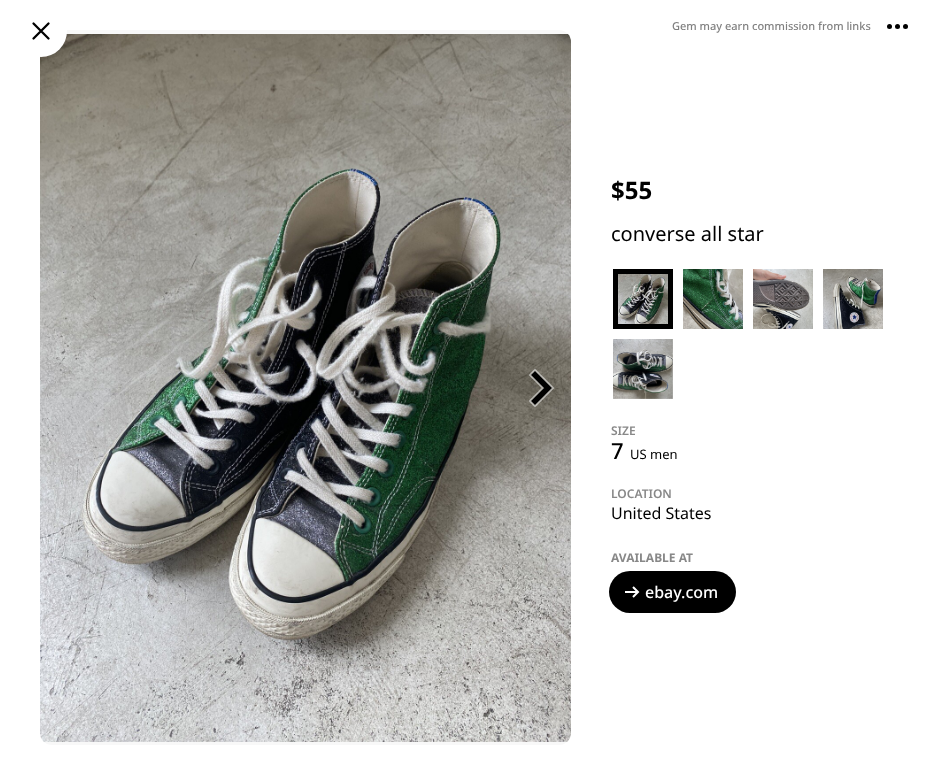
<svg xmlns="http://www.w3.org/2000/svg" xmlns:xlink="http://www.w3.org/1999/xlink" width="931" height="775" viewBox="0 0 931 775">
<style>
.cls-1{font:500 11px Noto Sans;fill:#808080}
.cls-2{font:bold 24px Noto Sans;fill:#000000}
.cls-3{font:20px Noto Sans;fill:#000000}
.cls-4{font:600 12px Noto Sans;fill:#888888}
.cls-5{font:500 22px Noto Sans;fill:#000000}
.cls-6{font:13px Noto Sans;fill:#000000}
.cls-7{font:16px Noto Sans;fill:#000000}
.cls-8{font:bold 12px Noto Sans;fill:#888888}
.cls-9{font:500 16px Noto Sans;fill:#ffffff}
</style>
<rect width="100%" height="100%" fill="#ffffff"/>
<rect fill="#f8f8f8" x="40" y="30" width="531" height="715" rx="12"/>
<image xlink:href="image0.png" x="40" y="34" width="531" height="708"/>
<circle fill="#ffffff" cx="41" cy="31" r="26"/>
<path fill="none" stroke="#000000" stroke-width="2.3" stroke-linecap="round" d="M33.5 38.5L48.5 23.5M48.5 38.5L33.5 23.5"/>
<circle fill="#000000" cx="889.5" cy="26.5" r="2.5"/>
<circle fill="#000000" cx="897.5" cy="26.5" r="2.5"/>
<circle fill="#000000" cx="905.5" cy="26.5" r="2.5"/>
<path fill="none" stroke="#ffffff" stroke-opacity="0.5" stroke-width="9.1" stroke-linecap="square" d="M535 375L548 388L535 401"/>
<path fill="none" stroke="#000000" stroke-width="5.6" stroke-linecap="square" d="M535 375L548 388L535 401"/>
<image xlink:href="image1.png" x="618" y="274" width="50" height="50"/>
<rect fill="none" stroke="#000000" stroke-width="5" x="615.5" y="271.5" width="55" height="55"/>
<image xlink:href="image2.png" x="683" y="269" width="60" height="60"/>
<image xlink:href="image3.png" x="753" y="269" width="60" height="60"/>
<image xlink:href="image4.png" x="823" y="269" width="60" height="60"/>
<image xlink:href="image5.png" x="613" y="339" width="60" height="60"/>
<rect fill="#000000" x="609" y="571" width="127" height="42" rx="21"/>
<path fill="none" stroke="#ffffff" stroke-width="2" d="M625 592H638M633 587L638 592L633 597"/>
<text class="cls-1" x="672" y="30">Gem may earn commission from links</text>
<text class="cls-2" x="611" y="199">$55</text>
<text class="cls-3" x="611" y="241">converse all star</text>
<text class="cls-4" x="611" y="435">SIZE</text>
<text class="cls-5" x="611" y="459">7</text>
<text class="cls-6" x="630" y="459">US men</text>
<text class="cls-4" x="611" y="498">LOCATION</text>
<text class="cls-7" x="611" y="519">United States</text>
<text class="cls-8" x="611" y="562">AVAILABLE AT</text>
<text class="cls-9" x="645" y="598">ebay.com</text>
</svg>
